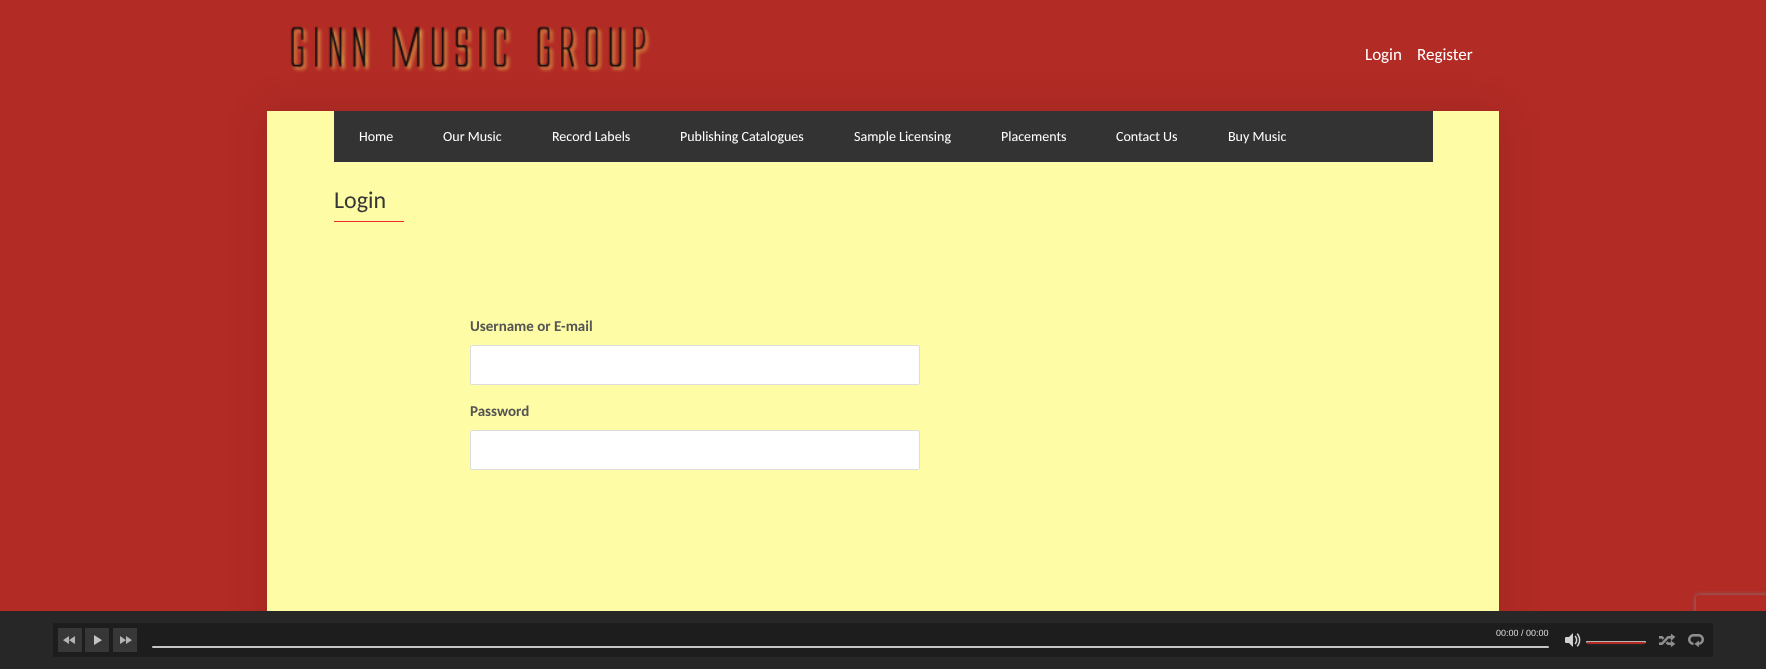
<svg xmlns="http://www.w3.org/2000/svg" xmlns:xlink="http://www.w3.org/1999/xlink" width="1766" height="669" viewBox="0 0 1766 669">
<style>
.cls-1{font:17px Carlito;fill:#ffffff}
.cls-2{font:14px Carlito;fill:#ffffff}
.cls-3{font:24px Carlito;fill:#363636}
.cls-4{font:bold 15px Carlito;fill:#555555}
.cls-5{font:9px Liberation Sans;fill:#dddddd}
</style>
<defs>
<clipPath id="clip1"><path d="M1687 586H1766V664H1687ZM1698 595H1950C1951 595 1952 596 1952 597V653C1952 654 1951 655 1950 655H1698C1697 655 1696 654 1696 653V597C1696 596 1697 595 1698 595Z" clip-rule="evenodd"/></clipPath>
</defs>
<rect width="100%" height="100%" fill="#b22b25"/>
<rect fill="#000000" fill-opacity="0.1" filter="blur(20px)" x="267" y="111" width="1232" height="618"/>
<image xlink:href="image0.png" x="290" y="26" width="361" height="47"/>
<rect fill="#fefca5" x="267" y="111" width="1232" height="500"/>
<rect fill="#fefcae" x="334" y="162" width="1099" height="1"/>
<rect fill="#333333" x="334" y="111" width="1099" height="51"/>
<rect fill="#ed2a31" x="334" y="221" width="70" height="1"/>
<rect fill="#ffffff" stroke="#dddddd" x="470.5" y="345.5" width="449" height="39" rx="1.5"/>
<rect fill="#ffffff" stroke="#dddddd" x="470.5" y="430.5" width="449" height="39" rx="1.5"/>
<g clip-path="url(#clip1)">
<rect fill="#808080" filter="blur(2.5px)" x="1696" y="595" width="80" height="60" rx="2"/>
</g>
<rect fill="#272727" x="0" y="611" width="1766" height="58"/>
<rect fill="#1d1d1d" x="53" y="623" width="1660" height="34"/>
<rect fill="#373737" x="58" y="628" width="24" height="24"/>
<image xlink:href="image1.png" x="63" y="636" width="12" height="8"/>
<rect fill="#373737" x="85" y="628" width="24" height="24"/>
<image xlink:href="image2.png" x="94" y="635" width="8" height="10"/>
<rect fill="#373737" x="113" y="628" width="24" height="24"/>
<image xlink:href="image3.png" x="120" y="636" width="12" height="8"/>
<rect fill="#c5c5c5" x="152" y="646" width="1397" height="2" rx="1"/>
<image xlink:href="image4.png" x="1565" y="633" width="16" height="14"/>
<rect fill="#c5c5c5" x="1586" y="641" width="60" height="2" rx="1"/>
<rect fill="#272727" filter="blur(1px)" x="1587" y="643" width="58" height="2" rx="1"/>
<rect fill="#b22b25" x="1587" y="642" width="58" height="2" rx="1"/>
<image xlink:href="image5.png" x="1659" y="633" width="17" height="14"/>
<image xlink:href="image6.png" x="1688" y="634" width="16" height="13"/>
<text class="cls-1" x="1365" y="60">Login</text>
<text class="cls-1" x="1417" y="60">Register</text>
<text class="cls-2" x="359" y="141">Home</text>
<text class="cls-2" x="443" y="141">Our Music</text>
<text class="cls-2" x="552" y="141">Record Labels</text>
<text class="cls-2" x="680" y="141">Publishing Catalogues</text>
<text class="cls-2" x="854" y="141">Sample Licensing</text>
<text class="cls-2" x="1001" y="141">Placements</text>
<text class="cls-2" x="1116" y="141">Contact Us</text>
<text class="cls-2" x="1228" y="141">Buy Music</text>
<text class="cls-3" x="334" y="208">Login</text>
<text class="cls-4" x="470" y="331">Username or E-mail</text>
<text class="cls-4" x="470" y="416">Password</text>
<text class="cls-5" x="1496" y="636">00:00 / 00:00</text>
</svg>
